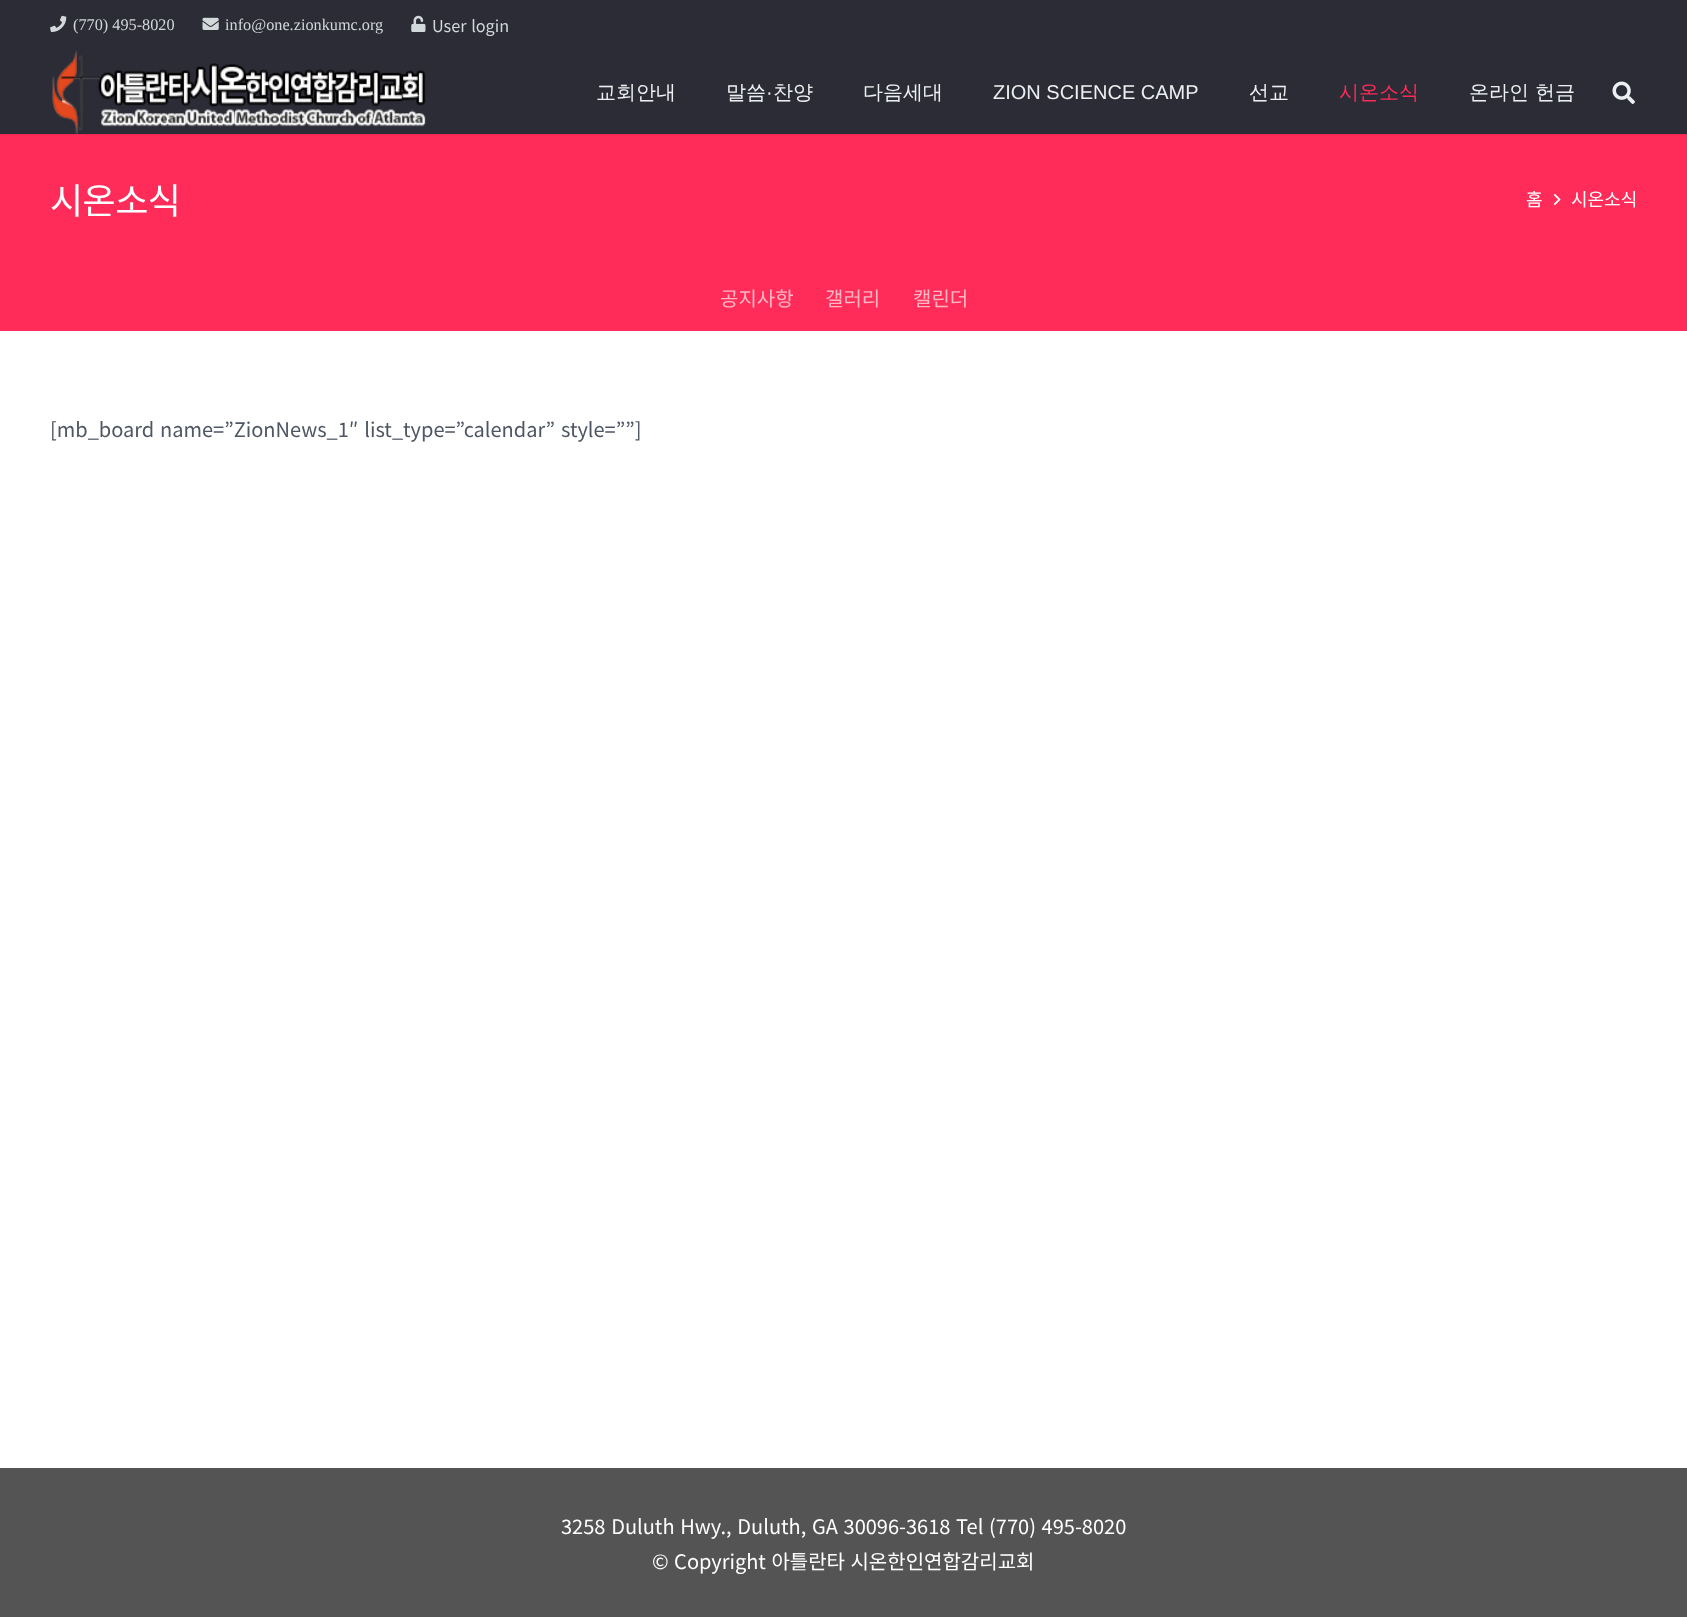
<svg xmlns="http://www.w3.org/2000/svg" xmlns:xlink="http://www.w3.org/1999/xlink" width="1687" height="1617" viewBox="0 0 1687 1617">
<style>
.cls-1{font:16.25px Liberation Serif;fill:#d3d8db}
.cls-2{font:16.25px Noto Sans KR;fill:#d3d8db}
.cls-3{font:500 20px WenQuanYi Zen Hei;fill:#edf0f2}
.cls-4{font:20px Liberation Sans;fill:#edf0f2}
.cls-5{font:500 20px WenQuanYi Zen Hei;fill:#ff2b58}
.cls-6{font:36px Noto Sans KR;letter-spacing:-0.5px;fill:#ffffff}
.cls-7{font:18px Noto Sans KR;fill:#ffffff}
.cls-8{font:20px Noto Sans KR;fill:#ffb7c6}
.cls-9{font:20px Noto Sans KR;fill:#4e5663}
.cls-10{font:20px Noto Sans KR;fill:#ffffff}
</style>
<rect width="100%" height="100%" fill="#ffffff"/>
<rect fill="#2b2c36" x="0" y="0" width="1687" height="134"/>
<image xlink:href="image0.png" x="50" y="15" width="17" height="17"/>
<image xlink:href="image1.png" x="202" y="17" width="17" height="13"/>
<image xlink:href="image2.png" x="411" y="15" width="15" height="17"/>
<path fill="#eb2851" d="M0 134V135H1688V51V134Z"/>
<image xlink:href="image3.png" x="52" y="51" width="374" height="83"/>
<image xlink:href="image4.png" x="1612" y="81" width="23" height="23"/>
<rect fill="#ff2b58" x="0" y="135" width="1687" height="196"/>
<image xlink:href="image5.png" x="1553" y="193" width="8" height="13"/>
<rect fill="#545454" x="0" y="1468" width="1687" height="149"/>
<text class="cls-1" x="73" y="30">(770) 495-8020</text>
<text class="cls-1" x="225" y="30">info@one.zionkumc.org</text>
<text class="cls-2" x="432" y="32" word-spacing="1">User login</text>
<text class="cls-3" x="596" y="99">교회안내</text>
<text class="cls-3" x="726" y="99">말씀</text>
<text class="cls-4" x="766" y="99">·</text>
<text class="cls-3" x="773" y="99">찬양</text>
<text class="cls-3" x="863" y="99">다음세대</text>
<text class="cls-4" x="993" y="99">ZION SCIENCE CAMP</text>
<text class="cls-3" x="1249" y="99">선교</text>
<text class="cls-5" x="1339" y="99">시온소식</text>
<text class="cls-3" x="1469" y="99">온라인 헌금</text>
<text class="cls-6" x="50" y="214">시온소식</text>
<text class="cls-7" x="1526" y="206">홈</text>
<text class="cls-7" x="1571" y="206">시온소식</text>
<text class="cls-8" x="720" y="306">공지사항</text>
<text class="cls-8" x="825" y="306">갤러리</text>
<text class="cls-8" x="913" y="306">캘린더</text>
<text class="cls-9" x="50" y="437" word-spacing="1.5">[mb_board name=”ZionNews_1″ list_type=”calendar” style=””]</text>
<text class="cls-10" x="561" y="1534" word-spacing="1.25">3258 Duluth Hwy., Duluth, GA 30096-3618 Tel (770) 495-8020</text>
<text class="cls-10" x="652" y="1569" word-spacing="1">© Copyright 아틀란타 시온한인연합감리교회</text>
</svg>
